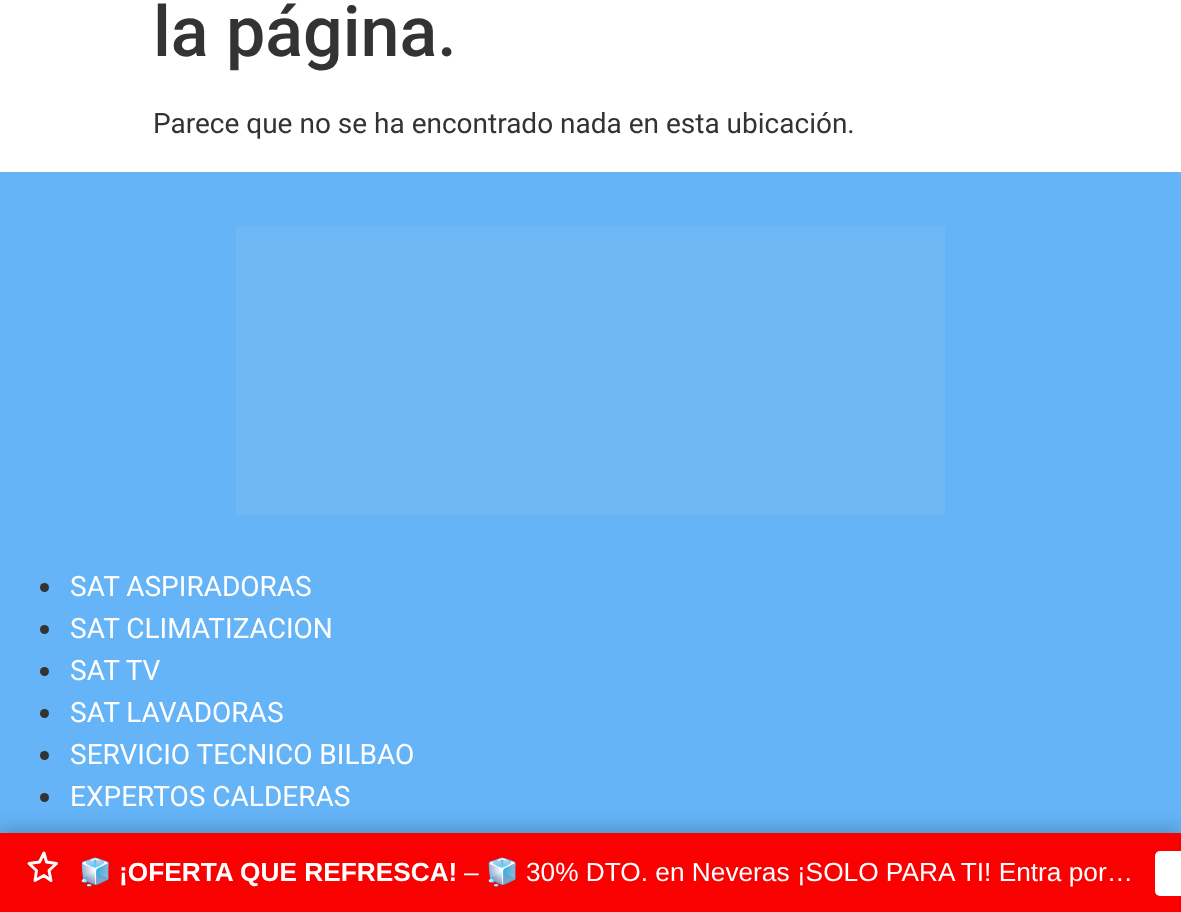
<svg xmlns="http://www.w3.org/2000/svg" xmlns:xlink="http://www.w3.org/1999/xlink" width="1181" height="912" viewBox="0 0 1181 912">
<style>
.cls-1{font:500 70px Roboto;fill:#333333}
.cls-2{font:28px Roboto;fill:#333333}
.cls-3{font:28px Roboto;fill:#ffffff}
.cls-4{font:bold 26.25px Noto Color Emoji;fill:#ffffff}
.cls-5{font:bold 26.25px Liberation Sans;fill:#ffffff}
.cls-6{font:26.25px Liberation Sans;fill:#ffffff}
.cls-7{font:26.25px Noto Color Emoji;fill:#ffffff}
</style>
<defs>
<clipPath id="clip1"><rect x="79" y="854" width="1059" height="39"/></clipPath>
</defs>
<rect width="100%" height="100%" fill="#ffffff"/>
<rect fill="#65b4f7" x="0" y="172" width="1181" height="661"/>
<rect fill="#6fb7f5" x="236" y="226" width="709" height="289"/>
<circle fill="#333333" cx="44.5" cy="587.5" r="4.5"/>
<circle fill="#333333" cx="44.5" cy="629.5" r="4.5"/>
<circle fill="#333333" cx="44.5" cy="671.5" r="4.5"/>
<circle fill="#333333" cx="44.5" cy="713.5" r="4.5"/>
<circle fill="#333333" cx="44.5" cy="755.5" r="4.5"/>
<circle fill="#333333" cx="44.5" cy="797.5" r="4.5"/>
<rect fill="#000000" fill-opacity="0.2" filter="blur(9px)" x="0" y="828" width="1181" height="80"/>
<rect fill="#f90101" x="0" y="833" width="1181" height="79"/>
<path fill="none" stroke="#ffffff" stroke-width="2.9" stroke-linecap="round" stroke-linejoin="round" d="M44 875.5L35 880.5L36.5 870.5L29 863.5L39.5 862L44 853L46.5 862L56.5 863.5L49 870.5L51 880.5Z"/>
<rect fill="#ffffff" x="1155" y="851" width="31" height="45" rx="5"/>
<text class="cls-1" x="153" y="56">la página.</text>
<text class="cls-2" x="153" y="133">Parece que no se ha encontrado nada en esta ubicación.</text>
<text class="cls-3"><tspan x="70" y="596">SAT ASPIRADORAS</tspan><tspan x="70" y="638">SAT CLIMATIZACION</tspan><tspan x="70" y="680">SAT TV</tspan><tspan x="70" y="722">SAT LAVADORAS</tspan><tspan x="70" y="764">SERVICIO TECNICO BILBAO</tspan><tspan x="70" y="806">EXPERTOS CALDERAS</tspan></text>
<g clip-path="url(#clip1)">
<text class="cls-4" x="79" y="881">🧊</text>
</g>
<text class="cls-5" x="119" y="881">¡OFERTA QUE REFRESCA!</text>
<text class="cls-6" x="464" y="881">–</text>
<text class="cls-7" x="486" y="881">🧊</text>
<text class="cls-6" x="526" y="881">30% DTO. en Neveras ¡SOLO PARA TI! Entra por…</text>
</svg>
